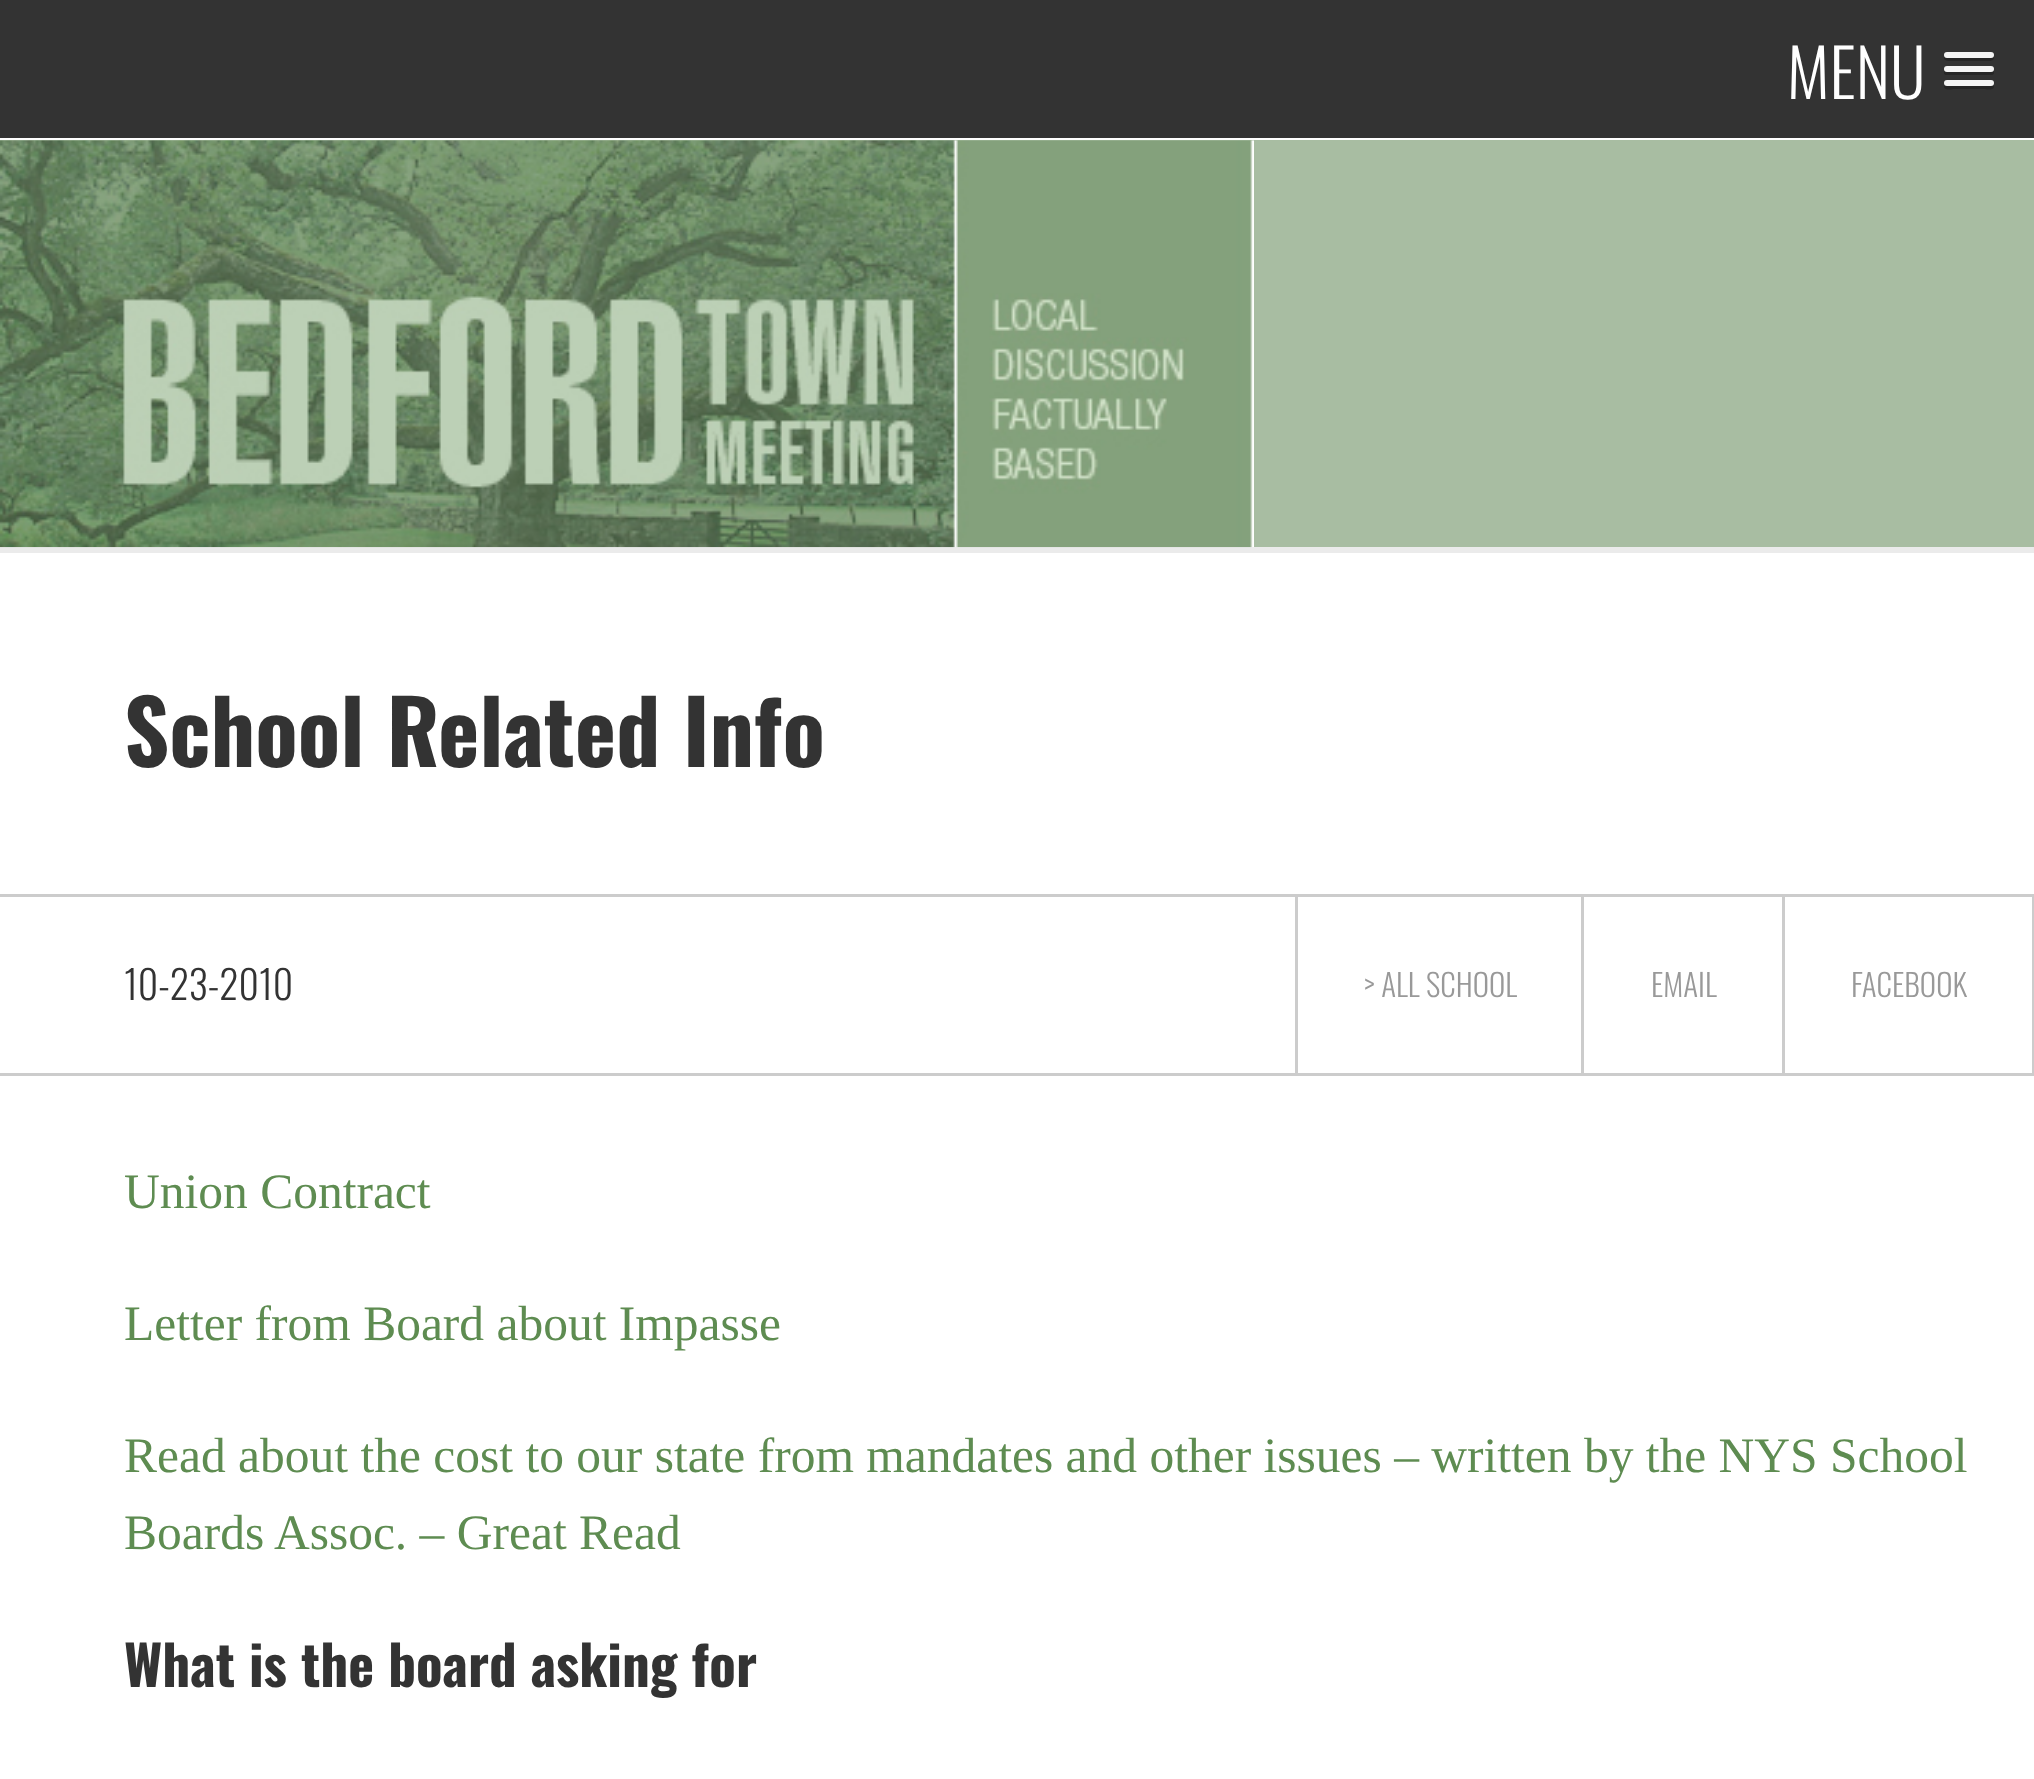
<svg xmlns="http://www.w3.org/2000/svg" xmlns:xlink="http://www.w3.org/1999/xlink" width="2034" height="1779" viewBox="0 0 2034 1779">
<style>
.cls-1{font:300 66px Oswald;fill:#ffffff}
.cls-2{font:bold 88px Oswald;fill:#333333}
.cls-3{font:300 39.5px Oswald;fill:#333333}
.cls-4{font:300 31px Oswald;fill:#999999}
.cls-5{font:49.5px Liberation Serif;fill:#5e8c51}
.cls-6{font:bold 55px Oswald;fill:#333333}
</style>
<rect width="100%" height="100%" fill="#333333"/>
<rect fill="#ffffff" x="0" y="138" width="2034" height="2"/>
<path fill="#262626" d="M1945 56C1940 62 1954 61 1954 61H1984C1984 61 1998 62 1993 56C1993 57 1992 58 1991 58H1947C1946 58 1945 57 1945 56Z"/>
<rect fill="#f5f5f5" x="1944" y="52" width="50" height="6" rx="3"/>
<path fill="#262626" d="M1945 70C1943 72 1944 75 1946 75H1992C1994 75 1995 72 1993 70C1993 71 1992 72 1991 72H1947C1946 72 1945 71 1945 70Z"/>
<rect fill="#f5f5f5" x="1944" y="66" width="50" height="6" rx="3"/>
<path fill="#262626" d="M1945 84L1944 87C1945 91 1953 89 1954 89H1984C1985 89 1993 91 1994 87L1993 84L1991 85H1947Z"/>
<rect fill="#f5f5f5" x="1944" y="80" width="50" height="6" rx="3"/>
<rect fill="#a8bda2" x="0" y="140" width="2034" height="407"/>
<rect fill="#ebebeb" x="0" y="547" width="2034" height="6"/>
<image xlink:href="image0.png" x="0" y="140" width="1254" height="408"/>
<rect fill="#ffffff" x="0" y="553" width="2034" height="1226"/>
<rect fill="#cccccc" x="0" y="894" width="2034" height="3"/>
<rect fill="#cccccc" x="2032" y="894" width="2" height="181"/>
<rect fill="#cccccc" x="0" y="1073" width="2034" height="3"/>
<rect fill="#cccccc" x="1295" y="897" width="3" height="176"/>
<rect fill="#cccccc" x="1581" y="897" width="3" height="176"/>
<rect fill="#cccccc" x="1782" y="897" width="3" height="176"/>
<text class="cls-1" x="1787" y="99">MENU</text>
<text class="cls-2" x="124" y="767">School Related Info</text>
<text class="cls-3" x="124" y="1000">10-23-2010</text>
<text class="cls-4" x="1364" y="997">&gt; ALL SCHOOL</text>
<text class="cls-4" x="1651" y="997">EMAIL</text>
<text class="cls-4" x="1851" y="997">FACEBOOK</text>
<text class="cls-5" x="124" y="1208">Union Contract</text>
<text class="cls-5" x="124" y="1340">Letter from Board about Impasse</text>
<text class="cls-5"><tspan x="124" y="1472">Read about the cost to our state from mandates and other issues – written by the NYS School</tspan><tspan x="124" y="1549">Boards Assoc. – Great Read</tspan></text>
<text class="cls-6" x="124" y="1687">What is the board asking for</text>
</svg>
